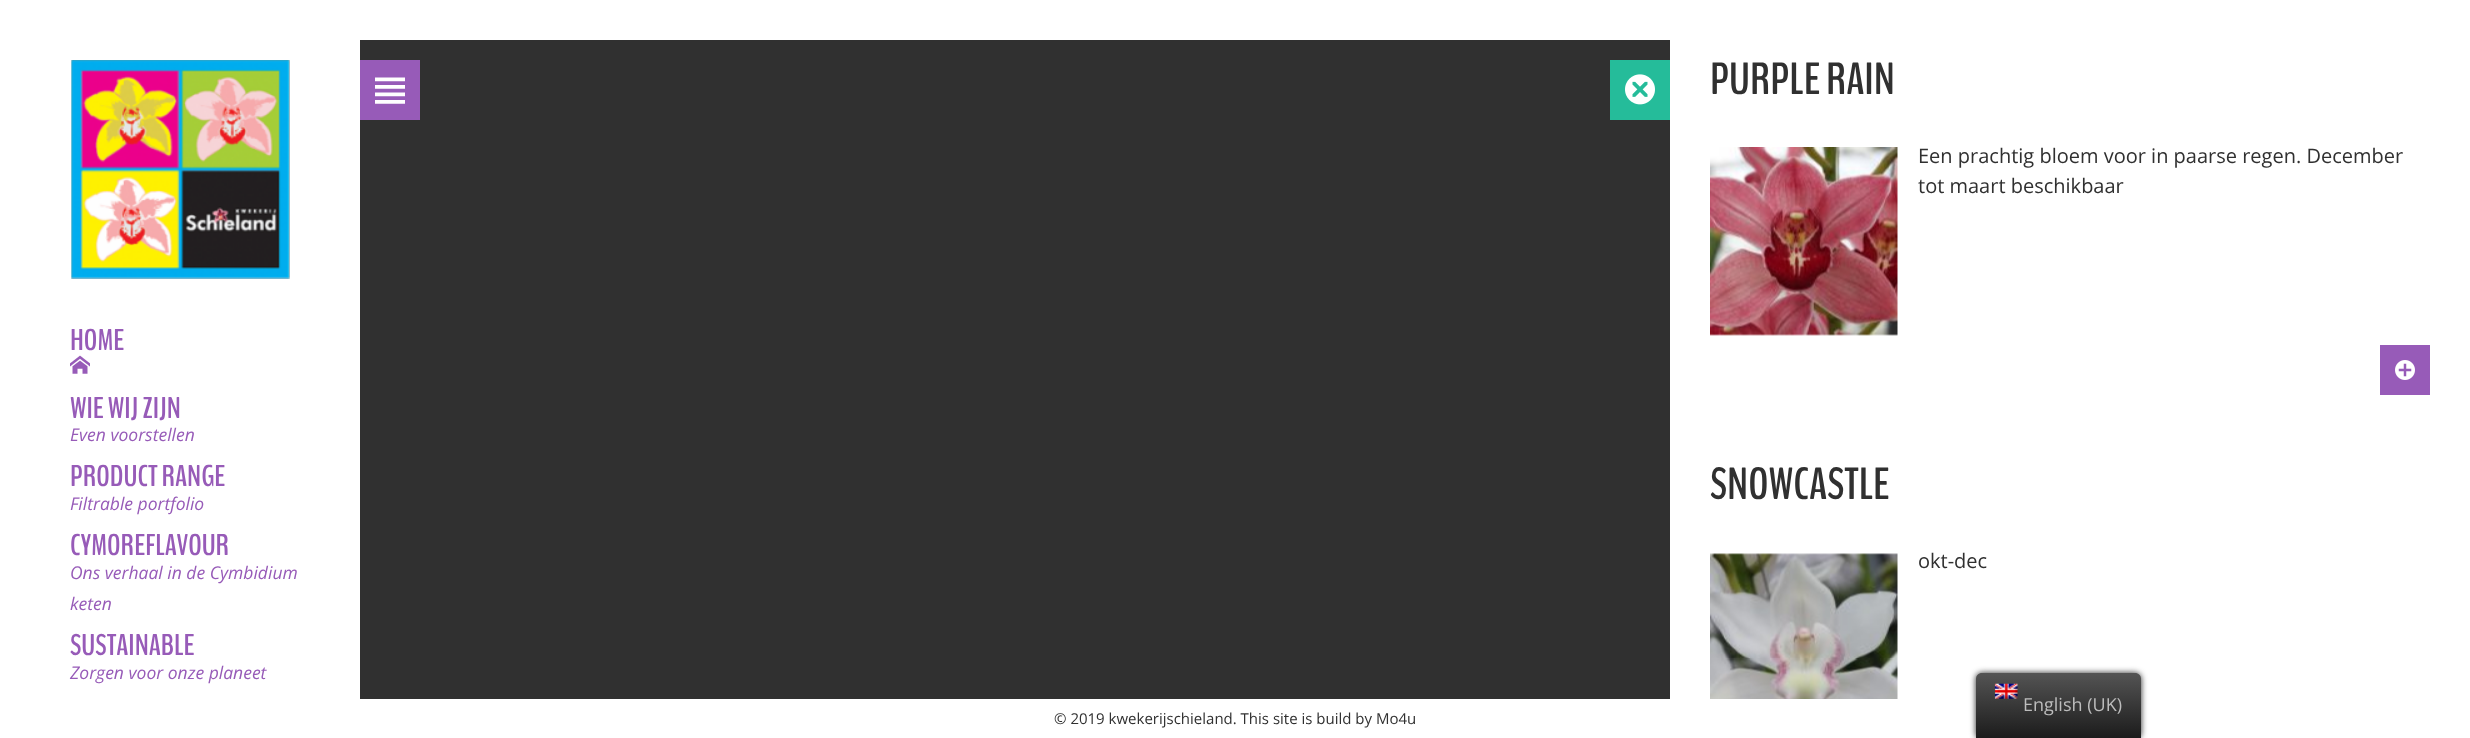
<svg xmlns="http://www.w3.org/2000/svg" xmlns:xlink="http://www.w3.org/1999/xlink" width="2470" height="738" viewBox="0 0 2470 738">
<style>
.cls-1{font:bold 30px BenchNine;fill:#975bb8}
.cls-2{font:italic 17.5px Open Sans;fill:#975bb8}
.cls-3{font:bold 45px BenchNine;fill:#303030}
.cls-4{font:20px Open Sans;fill:#303030}
.cls-5{font:18px Open Sans;fill:#bdbdbd}
.cls-6{font:15px Open Sans;fill:#303030}
</style>
<defs>
<linearGradient id="g1" gradientUnits="userSpaceOnUse" x1="2059" y1="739" x2="2059" y2="673"><stop offset="0" stop-color="#1b1b1b"/><stop offset="1" stop-color="#545454"/></linearGradient>
</defs>
<rect width="100%" height="100%" fill="#303030"/>
<rect fill="none" stroke="#ffffff" stroke-width="40" x="20" y="20" width="2430" height="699"/>
<rect fill="#ffffff" x="40" y="40" width="320" height="659"/>
<rect fill="#975bb8" x="360" y="60" width="60" height="60"/>
<image xlink:href="image0.png" x="375" y="77" width="30" height="27"/>
<image xlink:href="image1.png" x="71" y="60" width="219" height="219"/>
<image xlink:href="image2.png" x="70" y="355" width="20" height="19"/>
<rect fill="#ffffff" x="1670" y="40" width="760" height="659"/>
<rect fill="#25bc9a" x="1610" y="60" width="60" height="60"/>
<image xlink:href="image3.png" x="1625" y="74" width="30" height="31"/>
<image xlink:href="image4.png" x="1710" y="147" width="188" height="189"/>
<rect fill="#975bb8" x="2380" y="345" width="50" height="50"/>
<image xlink:href="image5.png" x="2395" y="360" width="20" height="20"/>
<image xlink:href="image6.png" x="1710" y="553" width="188" height="146"/>
<rect fill="#212121" filter="blur(3px)" x="1976" y="673" width="165" height="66" rx="6"/>
<path fill="url(#g1)" d="M1982 673H2135C2138.5 673 2141 675.5 2141 679V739H1976V679C1976 675.5 1978.5 673 1982 673Z"/>
<image xlink:href="image7.png" x="1994" y="683" width="24" height="16"/>
<text class="cls-1" x="70" y="350">HOME</text>
<text class="cls-1" x="70" y="418">WIE WIJ ZIJN</text>
<text class="cls-2" x="70" y="441">Even voorstellen</text>
<text class="cls-1" x="70" y="486">PRODUCT RANGE</text>
<text class="cls-2" x="70" y="510">Filtrable portfolio</text>
<text class="cls-1" x="70" y="555">CYMOREFLAVOUR</text>
<text class="cls-2"><tspan x="70" y="579">Ons verhaal in de Cymbidium</tspan><tspan x="70" y="610">keten</tspan></text>
<text class="cls-1" x="70" y="655">SUSTAINABLE</text>
<text class="cls-2" x="70" y="679">Zorgen voor onze planeet</text>
<text class="cls-3" x="1710" y="94">PURPLE RAIN</text>
<text class="cls-4"><tspan x="1918" y="163">Een prachtig bloem voor in paarse regen. December</tspan><tspan x="1918" y="193">tot maart beschikbaar</tspan></text>
<text class="cls-3" x="1710" y="499">SNOWCASTLE</text>
<text class="cls-4" x="1918" y="568">okt-dec</text>
<text class="cls-5" x="2023" y="711">English (UK)</text>
<text class="cls-6" x="1054" y="724">© 2019 kwekerijschieland. This site is build by Mo4u</text>
</svg>
